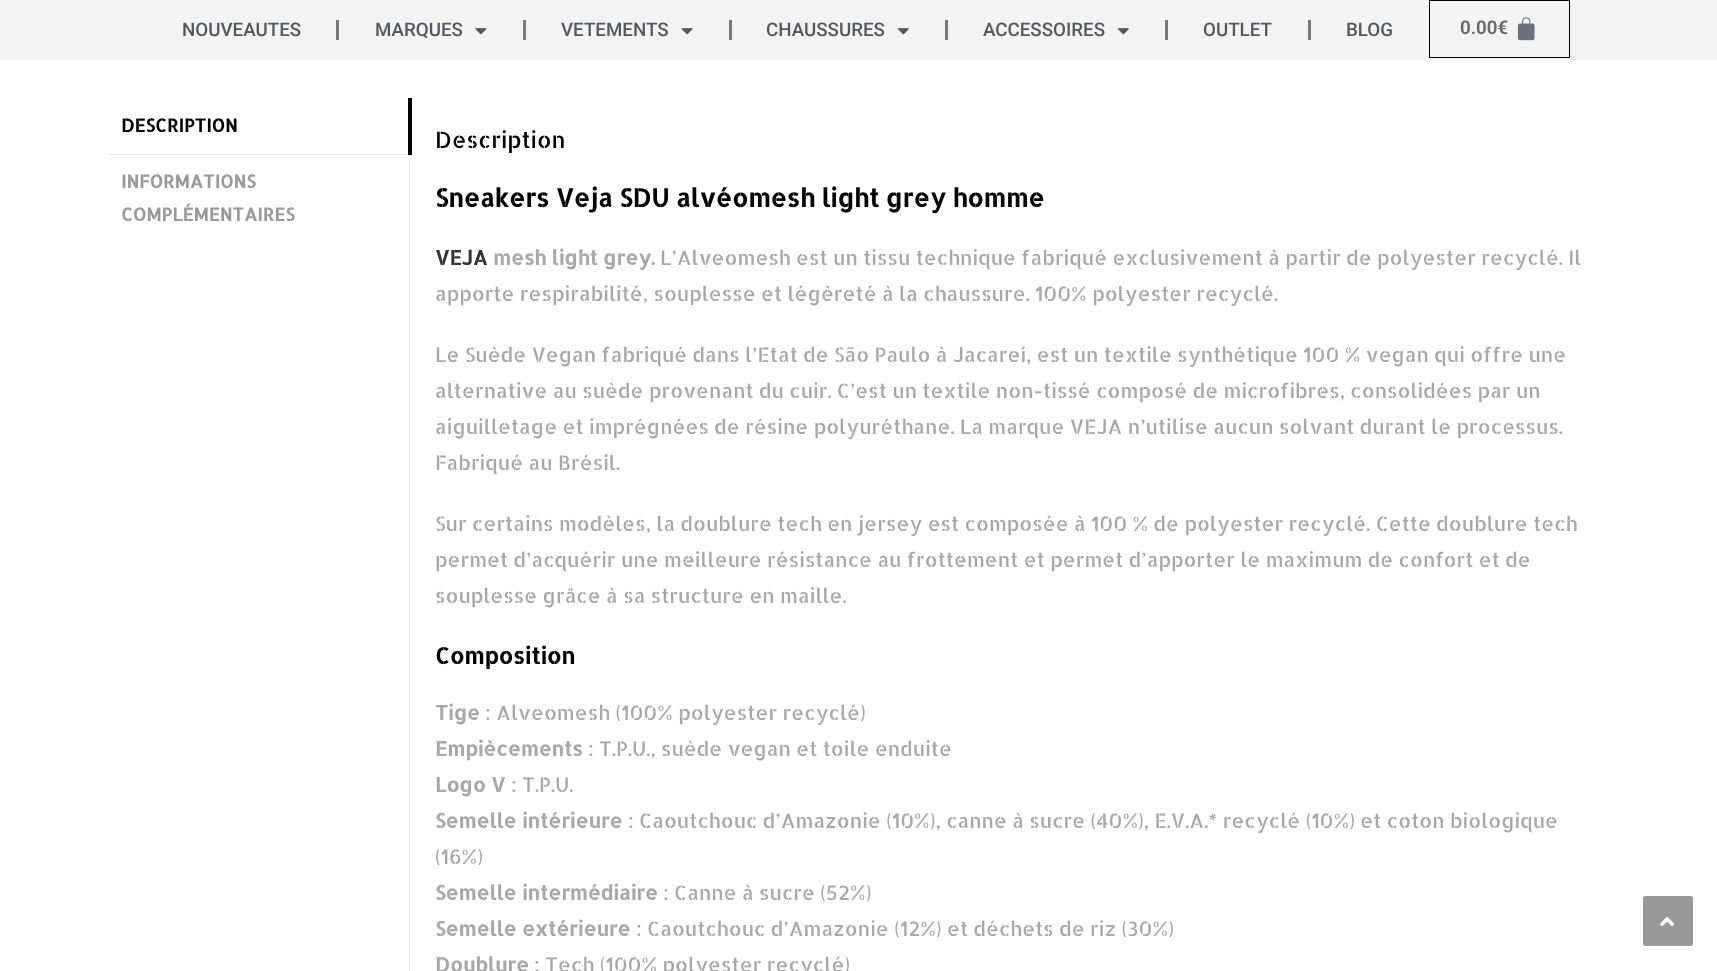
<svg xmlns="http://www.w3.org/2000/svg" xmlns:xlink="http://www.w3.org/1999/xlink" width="1717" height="971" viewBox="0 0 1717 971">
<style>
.cls-1{font:500 18.75px Roboto;fill:#54595f}
.cls-2{font:600 18.75px Roboto;fill:#686868}
.cls-3{font:bold 18px Allerta Stencil;fill:#000000}
.cls-4{font:bold 18px Allerta Stencil;fill:#999999}
.cls-5{font:22.5px Allerta Stencil;fill:#000000}
.cls-6{font:bold 25px Allerta Stencil;fill:#000000}
.cls-7{font:bold 20px Allerta Stencil;fill:#333333}
.cls-8{font:bold 20px Allerta Stencil;fill:#a8a8a8}
.cls-9{font:20px Allerta Stencil;fill:#a8a8a8}
.cls-10{font:bold 22.5px Allerta Stencil;fill:#000000}
</style>
<rect width="100%" height="100%" fill="#ffffff"/>
<rect fill="#f3f3f3" x="0" y="0" width="1717" height="60"/>
<rect fill="#7a7a7a" x="336" y="20" width="3" height="20"/>
<image xlink:href="image0.png" x="475" y="28" width="12" height="7"/>
<rect fill="#7a7a7a" x="523" y="20" width="3" height="20"/>
<image xlink:href="image1.png" x="681" y="28" width="12" height="7"/>
<rect fill="#7a7a7a" x="729" y="20" width="3" height="20"/>
<image xlink:href="image2.png" x="898" y="28" width="11" height="7"/>
<rect fill="#7a7a7a" x="945" y="20" width="3" height="20"/>
<image xlink:href="image2.png" x="1118" y="28" width="11" height="7"/>
<rect fill="#7a7a7a" x="1165" y="20" width="3" height="20"/>
<rect fill="#7a7a7a" x="1308" y="20" width="3" height="20"/>
<rect fill="none" stroke="#000000" x="1429.5" y="0.5" width="140" height="57"/>
<image xlink:href="image3.png" x="1517" y="17" width="18" height="24"/>
<rect fill="#eaeaea" x="109" y="154" width="300" height="1"/>
<rect fill="#000000" x="408" y="98" width="4" height="57"/>
<rect fill="#eaeaea" x="409" y="155" width="1" height="816"/>
<rect fill="#999999" x="1643" y="896" width="50" height="50" rx="2.5"/>
<image xlink:href="image4.png" x="1660" y="917" width="14" height="9"/>
<text class="cls-1" x="182" y="36">NOUVEAUTES</text>
<text class="cls-1" x="375" y="36">MARQUES</text>
<text class="cls-1" x="561" y="36">VETEMENTS</text>
<text class="cls-1" x="766" y="36">CHAUSSURES</text>
<text class="cls-1" x="983" y="36">ACCESSOIRES</text>
<text class="cls-1" x="1203" y="36">OUTLET</text>
<text class="cls-1" x="1346" y="36">BLOG</text>
<text class="cls-2" x="1460" y="34">0.00€</text>
<text class="cls-3" x="121" y="132">DESCRIPTION</text>
<text class="cls-4"><tspan x="121" y="188">INFORMATIONS</tspan><tspan x="121" y="221">COMPLÉMENTAIRES</tspan></text>
<text class="cls-5" x="435" y="148">Description</text>
<text class="cls-6" x="435" y="207">Sneakers Veja SDU alvéomesh light grey homme</text>
<text class="cls-7" x="435" y="265">VEJA</text>
<text class="cls-8" x="493" y="265">mesh light grey.</text>
<text class="cls-9" x="660" y="265">L’Alveomesh est un tissu technique fabriqué exclusivement à partir de polyester recyclé. Il</text>
<text class="cls-9" x="435" y="301">apporte respirabilité, souplesse et légèreté à la chaussure. 100% polyester recyclé.</text>
<text class="cls-9"><tspan x="435" y="362">Le Suède Vegan fabriqué dans l’Etat de São Paulo à Jacareí, est un textile synthétique 100 % vegan qui offre une</tspan><tspan x="435" y="398">alternative au suède provenant du cuir. C’est un textile non-tissé composé de microfibres, consolidées par un</tspan><tspan x="435" y="434">aiguilletage et imprégnées de résine polyuréthane. La marque VEJA n’utilise aucun solvant durant le processus.</tspan><tspan x="435" y="470">Fabriqué au Brésil.</tspan></text>
<text class="cls-9"><tspan x="435" y="531">Sur certains modèles, la doublure tech en jersey est composée à 100 % de polyester recyclé. Cette doublure tech</tspan><tspan x="435" y="567">permet d’acquérir une meilleure résistance au frottement et permet d’apporter le maximum de confort et de</tspan><tspan x="435" y="603">souplesse grâce à sa structure en maille.</tspan></text>
<text class="cls-10" x="435" y="664">Composition</text>
<text class="cls-8" x="435" y="720">Tige</text>
<text class="cls-9" x="485" y="720">: Alveomesh (100% polyester recyclé)</text>
<text class="cls-8" x="435" y="756">Empiècements</text>
<text class="cls-9" x="588" y="756">: T.P.U., suède vegan et toile enduite</text>
<text class="cls-8" x="435" y="792">Logo V</text>
<text class="cls-9" x="511" y="792">: T.P.U.</text>
<text class="cls-8" x="435" y="828">Semelle intérieure</text>
<text class="cls-9" x="628" y="828">: Caoutchouc d’Amazonie (10%), canne à sucre (40%), E.V.A.* recyclé (10%) et coton biologique</text>
<text class="cls-9" x="435" y="864">(16%)</text>
<text class="cls-8" x="435" y="900">Semelle intermédiaire</text>
<text class="cls-9" x="663" y="900">: Canne à sucre (52%)</text>
<text class="cls-8" x="435" y="936">Semelle extérieure</text>
<text class="cls-9" x="636" y="936">: Caoutchouc d’Amazonie (12%) et déchets de riz (30%)</text>
<text class="cls-8" x="435" y="972">Doublure</text>
<text class="cls-9" x="534" y="972">: Tech (100% polyester recyclé)</text>
</svg>
